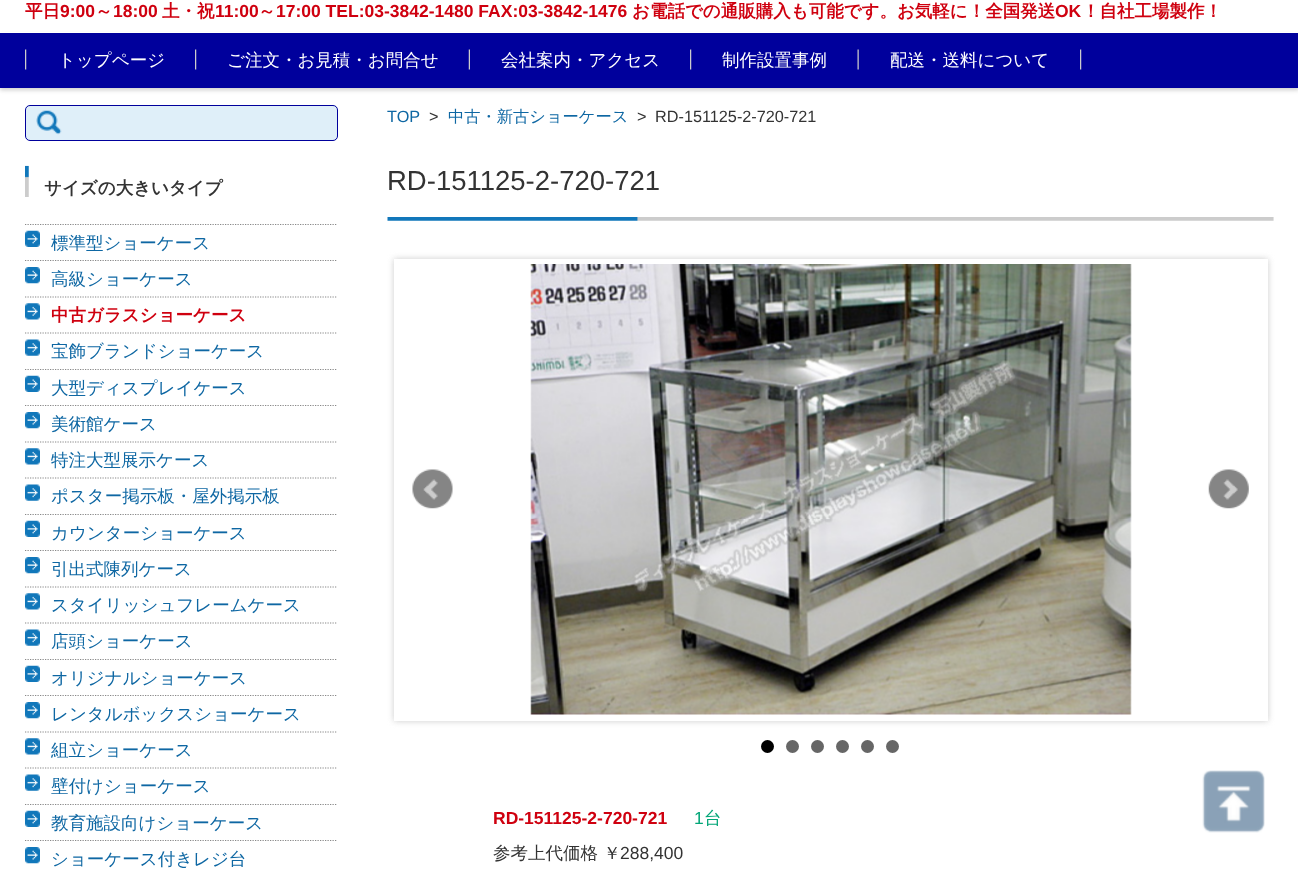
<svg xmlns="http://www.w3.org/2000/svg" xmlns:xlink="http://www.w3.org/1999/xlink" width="1298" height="873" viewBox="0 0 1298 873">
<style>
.cls-1{font:bold 17.5px WenQuanYi Zen Hei;fill:#cf000f}
.cls-2{font:bold 17.5px Liberation Sans;fill:#cf000f}
.cls-3{font:500 17.5px WenQuanYi Zen Hei;fill:#ffffff}
.cls-4{font:bold 17.5px WenQuanYi Zen Hei;fill:#333333}
.cls-5{font:500 17.5px WenQuanYi Zen Hei;fill:#0e67a3}
.cls-6{font:16.25px Liberation Sans;fill:#0e67a3}
.cls-7{font:16.25px Liberation Sans;fill:#333333}
.cls-8{font:500 16.25px WenQuanYi Zen Hei;fill:#0e67a3}
.cls-9{font:27.5px Liberation Sans;fill:#333333}
.cls-10{font:17.5px Liberation Sans;fill:#03a678}
.cls-11{font:500 17.5px WenQuanYi Zen Hei;fill:#03a678}
.cls-12{font:500 17.5px WenQuanYi Zen Hei;fill:#333333}
.cls-13{font:17.5px Liberation Sans;fill:#333333}
</style>
<rect width="100%" height="100%" fill="#ffffff"/>
<rect fill="#000000" fill-opacity="0.2" filter="blur(2px)" x="0" y="35" width="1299" height="55"/>
<rect fill="#ffffff" x="0" y="32" width="1298" height="1"/>
<rect fill="#00009c" x="0" y="33" width="1298" height="55"/>
<image xlink:href="image0.png" x="25" y="49" width="2" height="21"/>
<image xlink:href="image0.png" x="195" y="49" width="2" height="21"/>
<image xlink:href="image1.png" x="468" y="49" width="2" height="21"/>
<image xlink:href="image0.png" x="690" y="49" width="2" height="21"/>
<image xlink:href="image2.png" x="857" y="49" width="225" height="21"/>
<rect fill="#dfeff9" x="25" y="105" width="313" height="36" rx="5"/>
<image xlink:href="image3.png" x="36" y="110" width="26" height="25"/>
<rect fill="none" stroke="#00009c" x="25.5" y="105.5" width="312" height="35" rx="4.5"/>
<image xlink:href="image4.png" x="25" y="165" width="4" height="32"/>
<path fill="none" stroke="#888888" stroke-width="1.2" stroke-dasharray="1.25 1.25" d="M25 224.5H337.5"/>
<image xlink:href="image5.png" x="25" y="230" width="15" height="17"/>
<path fill="none" stroke="#888888" stroke-width="1.2" stroke-dasharray="1.25 1.25" d="M25 260.5H337.5"/>
<image xlink:href="image6.png" x="25" y="267" width="15" height="17"/>
<path fill="none" stroke="#888888" stroke-width="1.2" stroke-dasharray="1.25 1.25" d="M25 297H337.5"/>
<image xlink:href="image7.png" x="25" y="303" width="15" height="17"/>
<path fill="none" stroke="#888888" stroke-width="1.2" stroke-dasharray="1.25 1.25" d="M25 333H337.5"/>
<image xlink:href="image8.png" x="25" y="339" width="15" height="17"/>
<path fill="none" stroke="#888888" stroke-width="1.2" stroke-dasharray="1.25 1.25" d="M25 369.5H337.5"/>
<image xlink:href="image5.png" x="25" y="375" width="15" height="17"/>
<path fill="none" stroke="#888888" stroke-width="1.2" stroke-dasharray="1.25 1.25" d="M25 405.5H337.5"/>
<image xlink:href="image6.png" x="25" y="412" width="15" height="17"/>
<path fill="none" stroke="#888888" stroke-width="1.2" stroke-dasharray="1.25 1.25" d="M25 442H337.5"/>
<image xlink:href="image7.png" x="25" y="448" width="15" height="17"/>
<path fill="none" stroke="#888888" stroke-width="1.2" stroke-dasharray="1.25 1.25" d="M25 478H337.5"/>
<image xlink:href="image8.png" x="25" y="484" width="15" height="17"/>
<path fill="none" stroke="#888888" stroke-width="1.2" stroke-dasharray="1.25 1.25" d="M25 514.5H337.5"/>
<image xlink:href="image5.png" x="25" y="520" width="15" height="17"/>
<path fill="none" stroke="#888888" stroke-width="1.2" stroke-dasharray="1.25 1.25" d="M25 550.5H337.5"/>
<image xlink:href="image6.png" x="25" y="557" width="15" height="17"/>
<path fill="none" stroke="#888888" stroke-width="1.2" stroke-dasharray="1.25 1.25" d="M25 587H337.5"/>
<image xlink:href="image7.png" x="25" y="593" width="15" height="17"/>
<path fill="none" stroke="#888888" stroke-width="1.2" stroke-dasharray="1.25 1.25" d="M25 623H337.5"/>
<image xlink:href="image8.png" x="25" y="629" width="15" height="17"/>
<path fill="none" stroke="#888888" stroke-width="1.2" stroke-dasharray="1.25 1.25" d="M25 659.5H337.5"/>
<image xlink:href="image5.png" x="25" y="665" width="15" height="17"/>
<path fill="none" stroke="#888888" stroke-width="1.2" stroke-dasharray="1.25 1.25" d="M25 695.5H337.5"/>
<image xlink:href="image6.png" x="25" y="702" width="15" height="17"/>
<path fill="none" stroke="#888888" stroke-width="1.2" stroke-dasharray="1.25 1.25" d="M25 732H337.5"/>
<image xlink:href="image7.png" x="25" y="738" width="15" height="17"/>
<path fill="none" stroke="#888888" stroke-width="1.2" stroke-dasharray="1.25 1.25" d="M25 768H337.5"/>
<image xlink:href="image8.png" x="25" y="774" width="15" height="17"/>
<path fill="none" stroke="#888888" stroke-width="1.2" stroke-dasharray="1.25 1.25" d="M25 804.5H337.5"/>
<image xlink:href="image5.png" x="25" y="810" width="15" height="17"/>
<path fill="none" stroke="#888888" stroke-width="1.2" stroke-dasharray="1.25 1.25" d="M25 840.5H337.5"/>
<image xlink:href="image6.png" x="25" y="847" width="15" height="17"/>
<image xlink:href="image9.png" x="387" y="217" width="887" height="4"/>
<rect fill="#cccccc" filter="blur(3px)" x="394" y="259" width="874" height="462"/>
<rect fill="#ffffff" x="394" y="259" width="874" height="462"/>
<image xlink:href="image10.png" x="530" y="264" width="602" height="451"/>
<image xlink:href="image11.png" x="412" y="469" width="41" height="40"/>
<image xlink:href="image12.png" x="1208" y="469" width="41" height="40"/>
<circle fill="#000000" cx="767.5" cy="746.5" r="6.5"/>
<circle fill="#666666" cx="792.5" cy="746.5" r="6.5"/>
<circle fill="#666666" cx="817.5" cy="746.5" r="6.5"/>
<circle fill="#666666" cx="842.5" cy="746.5" r="6.5"/>
<circle fill="#666666" cx="867.5" cy="746.5" r="6.5"/>
<circle fill="#666666" cx="892.5" cy="746.5" r="6.5"/>
<image xlink:href="image13.png" x="1202" y="770" width="63" height="63"/>
<text class="cls-1" x="25" y="17">平日</text>
<text class="cls-2" x="60" y="17">9:00</text>
<text class="cls-1" x="95" y="17">～</text>
<text class="cls-2" x="113" y="17">18:00</text>
<text class="cls-1" x="162" y="17">土・祝</text>
<text class="cls-2" x="215" y="17">11:00</text>
<text class="cls-1" x="258" y="17">～</text>
<text class="cls-2" x="276" y="17">17:00 TEL:03-3842-1480 FAX:03-3842-1476</text>
<text class="cls-1" x="632" y="17">お電話での通販購入も可能です。お気軽に！全国発送</text>
<text class="cls-2" x="1055" y="17">OK</text>
<text class="cls-1" x="1082" y="17">！自社工場製作！</text>
<text class="cls-3" x="58" y="66">トップページ</text>
<text class="cls-3" x="227" y="66">ご注文・お見積・お問合せ</text>
<text class="cls-3" x="501" y="66">会社案内・アクセス</text>
<text class="cls-3" x="722" y="66">制作設置事例</text>
<text class="cls-3" x="890" y="66">配送・送料について</text>
<text class="cls-4" x="44" y="194">サイズの大きいタイプ</text>
<text class="cls-5" x="51" y="249">標準型ショーケース</text>
<text class="cls-5" x="51" y="285">高級ショーケース</text>
<text class="cls-1" x="51" y="321">中古ガラスショーケース</text>
<text class="cls-5" x="51" y="357">宝飾ブランドショーケース</text>
<text class="cls-5" x="51" y="394">大型ディスプレイケース</text>
<text class="cls-5" x="51" y="430">美術館ケース</text>
<text class="cls-5" x="51" y="466">特注大型展示ケース</text>
<text class="cls-5" x="51" y="502">ポスター掲示板・屋外掲示板</text>
<text class="cls-5" x="51" y="539">カウンターショーケース</text>
<text class="cls-5" x="51" y="575">引出式陳列ケース</text>
<text class="cls-5" x="51" y="611">スタイリッシュフレームケース</text>
<text class="cls-5" x="51" y="647">店頭ショーケース</text>
<text class="cls-5" x="51" y="684">オリジナルショーケース</text>
<text class="cls-5" x="51" y="720">レンタルボックスショーケース</text>
<text class="cls-5" x="51" y="756">組立ショーケース</text>
<text class="cls-5" x="51" y="792">壁付けショーケース</text>
<text class="cls-5" x="51" y="829">教育施設向けショーケース</text>
<text class="cls-5" x="51" y="865">ショーケース付きレジ台</text>
<text class="cls-6" x="387" y="122">TOP</text>
<text class="cls-7" x="429" y="122">&gt;</text>
<text class="cls-8" x="448" y="122">中古・新古ショーケース</text>
<text class="cls-7" x="637" y="122">&gt;</text>
<text class="cls-7" x="655" y="122">RD-151125-2-720-721</text>
<text class="cls-9" x="387" y="190">RD-151125-2-720-721</text>
<text class="cls-2" x="493" y="824">RD-151125-2-720-721</text>
<text class="cls-10" x="694" y="824">1</text>
<text class="cls-11" x="704" y="824">台</text>
<text class="cls-12" x="493" y="859">参考上代価格 ￥</text>
<text class="cls-13" x="620" y="859">288,400</text>
</svg>
